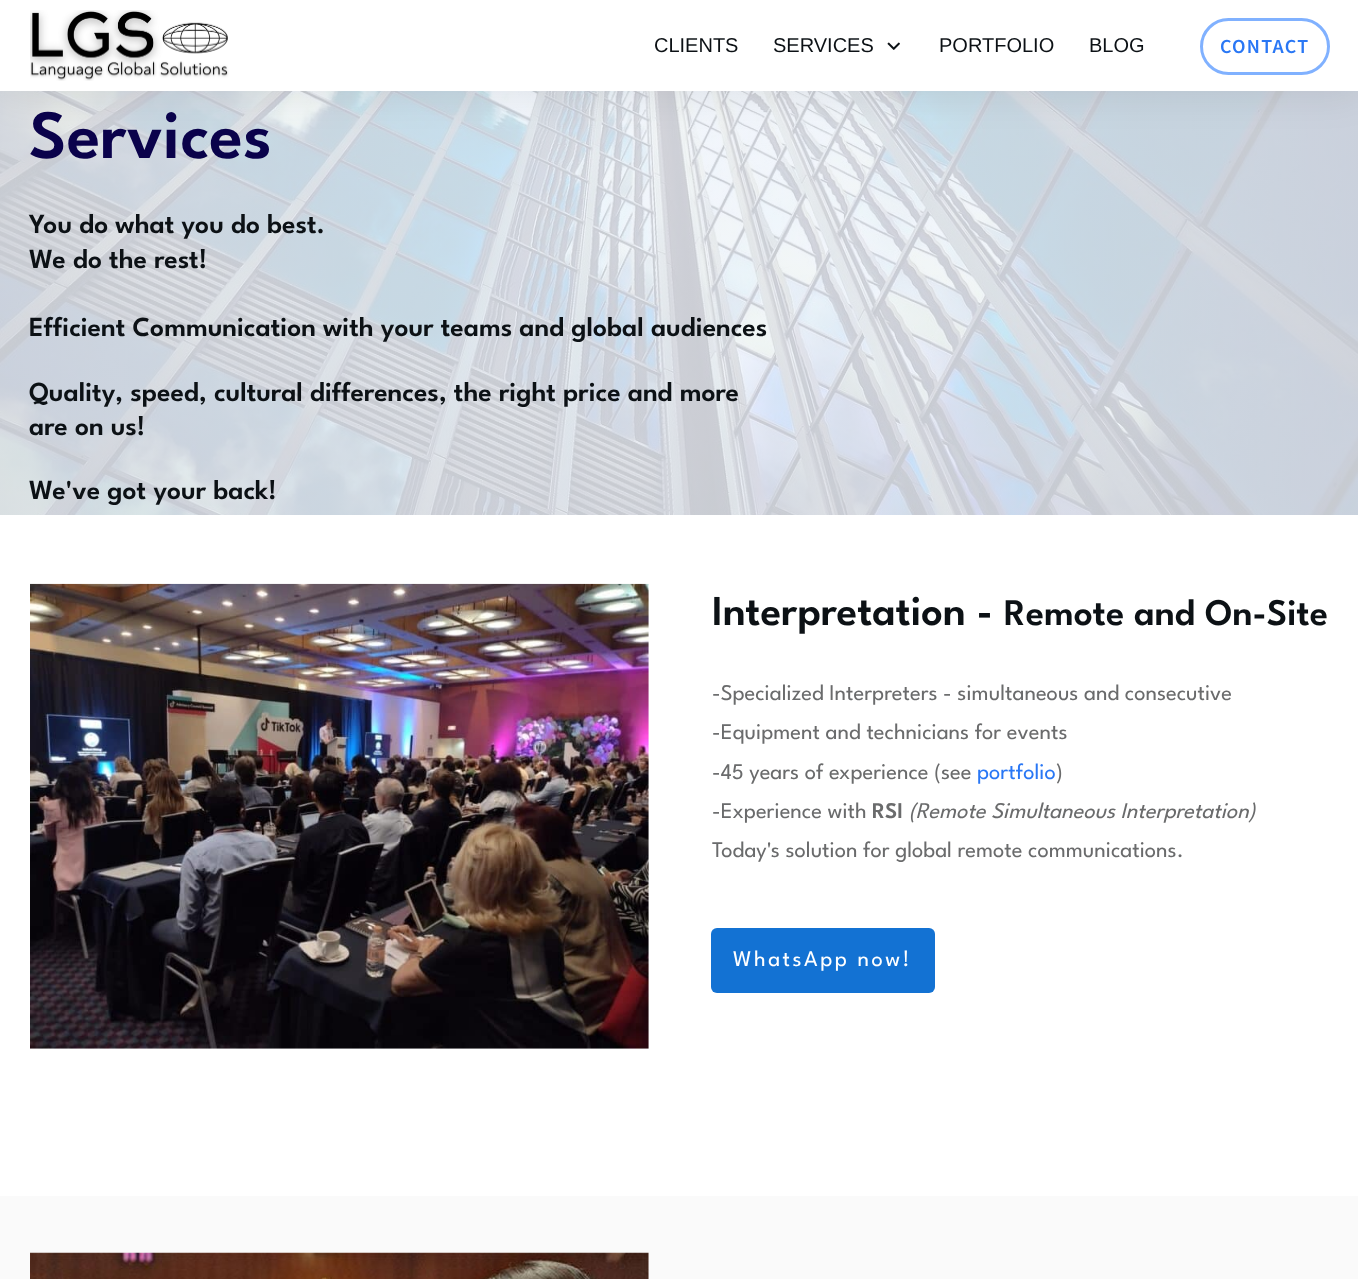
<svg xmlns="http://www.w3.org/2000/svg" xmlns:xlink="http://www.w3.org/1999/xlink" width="1358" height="1279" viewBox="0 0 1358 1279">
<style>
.cls-1{font:20px Liberation Sans;fill:#0c1115}
.cls-2{font:600 20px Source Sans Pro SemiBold;letter-spacing:1.25px;fill:#2977f5}
.cls-3{font:600 69px League Spartan;fill:#0a024b}
.cls-4{font:600 27.5px League Spartan;fill:#0c1115}
.cls-5{font:600 42.5px League Spartan;fill:#0c1115}
.cls-6{font:600 37.5px League Spartan;fill:#0c1115}
.cls-7{font:22.5px League Spartan;fill:#6a6b6c}
.cls-8{font:22.5px League Spartan;fill:#2977f5}
.cls-9{font:600 22.5px League Spartan;fill:#6a6b6c}
.cls-10{font:italic 22.5px League Spartan;fill:#6a6b6c}
.cls-11{font:22.5px League Spartan;letter-spacing:2.5px;fill:#ffffff}
</style>
<rect width="100%" height="100%" fill="#ffffff"/>
<image xlink:href="image2.png" x="0" y="91" width="1358" height="424"/>
<rect fill="#000000" fill-opacity="0.08" filter="blur(19px)" x="0" y="3" width="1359" height="91"/>
<rect fill="#ffffff" x="0" y="0" width="1358" height="91"/>
<image xlink:href="image0.png" x="30" y="10" width="199" height="71"/>
<image xlink:href="image1.png" x="887" y="42" width="13" height="8"/>
<rect fill="none" stroke="#80b1ff" stroke-width="3" x="1201.5" y="19.5" width="127" height="54" rx="27"/>
<image xlink:href="image3.png" x="30" y="583" width="619" height="466"/>
<rect fill="#1372d3" x="711" y="928" width="224" height="65" rx="6"/>
<rect fill="#fafafa" x="0" y="1196" width="1358" height="83"/>
<image xlink:href="image4.png" x="30" y="1252" width="619" height="27"/>
<text class="cls-1" x="654" y="52">CLIENTS</text>
<text class="cls-1" x="773" y="52">SERVICES</text>
<text class="cls-1" x="939" y="52">PORTFOLIO</text>
<text class="cls-1" x="1089" y="52">BLOG</text>
<text class="cls-2" x="1220" y="53">CONTACT</text>
<text class="cls-3" x="29" y="158">Services</text>
<text class="cls-4"><tspan x="29" y="233">You do what you do best.</tspan><tspan x="29" y="268">We do the rest!</tspan></text>
<text class="cls-4" x="29" y="336">Efficient Communication with your teams and global audiences</text>
<text class="cls-4"><tspan x="29" y="401">Quality, speed, cultural differences, the right price and more</tspan><tspan x="29" y="435">are on us!</tspan></text>
<text class="cls-4" x="29" y="499">We've got your back!</text>
<text class="cls-5" x="712" y="625">Interpretation -</text>
<text class="cls-6" x="1004" y="625">Remote and On-Site</text>
<text class="cls-7"><tspan x="712" y="700">-Specialized Interpreters - simultaneous and consecutive</tspan><tspan x="712" y="739">-Equipment and technicians for events</tspan><tspan x="712" y="779">-45 years of experience (see</tspan></text>
<text class="cls-8" x="977" y="779">portfolio</text>
<text class="cls-7" x="1056" y="779">)</text>
<text class="cls-7" x="712" y="818">-Experience with</text>
<text class="cls-9" x="872" y="818">RSI</text>
<text class="cls-10" x="909" y="818">(Remote Simultaneous Interpretation)</text>
<text class="cls-7" x="712" y="857">Today's solution for global remote communications.</text>
<text class="cls-11" x="733" y="966">WhatsApp now!</text>
</svg>
